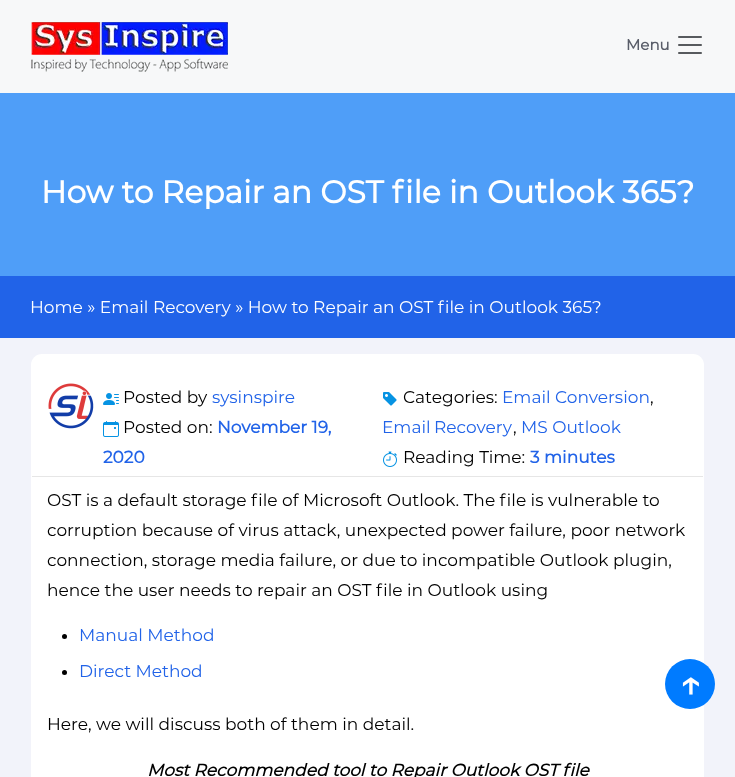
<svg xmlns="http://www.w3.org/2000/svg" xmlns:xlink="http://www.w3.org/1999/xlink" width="735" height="777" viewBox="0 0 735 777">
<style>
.cls-1{font:bold 15px Montserrat;fill:#595d69}
.cls-2{font:bold 31.4px Montserrat;fill:#ffffff}
.cls-3{font:17px Montserrat;fill:#ffffff}
.cls-4{font:17px Montserrat;fill:#000000}
.cls-5{font:17px Montserrat;fill:#2163e8}
.cls-6{font:bold 17px Montserrat;fill:#2163e8}
.cls-7{font:italic bold 17px Montserrat;fill:#000000}
.cls-8{font:bold 38px Montserrat;fill:#ffffff}
</style>
<rect width="100%" height="100%" fill="#f2f3fa"/>
<rect fill="#f7f8f9" x="0" y="0" width="735" height="93"/>
<image xlink:href="image0.png" x="31" y="22" width="197" height="50"/>
<image xlink:href="image1.png" x="678" y="36" width="24" height="18"/>
<rect fill="#4f9ef8" x="0" y="93" width="735" height="183"/>
<rect fill="#2163e8" x="0" y="276" width="735" height="62"/>
<rect fill="#ffffff" x="31" y="354" width="673" height="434" rx="11"/>
<rect fill="#e6e6e6" x="32" y="476" width="671" height="1"/>
<image xlink:href="image2.png" x="48" y="383" width="46" height="46"/>
<image xlink:href="image3.png" x="103" y="393" width="16" height="12"/>
<image xlink:href="image4.png" x="103" y="421" width="16" height="16"/>
<image xlink:href="image5.png" x="383" y="392" width="14" height="14"/>
<image xlink:href="image6.png" x="383" y="451" width="14" height="16"/>
<circle fill="#000000" cx="64.5" cy="636.5" r="2.5"/>
<circle fill="#000000" cx="64.5" cy="672.5" r="2.5"/>
<circle fill="#007bff" cx="690" cy="684" r="25"/>
<text class="cls-1" x="626" y="50">Menu</text>
<text class="cls-2" x="41" y="203">How to Repair an OST file in Outlook 365?</text>
<text class="cls-3" x="30" y="313">Home » Email Recovery » How to Repair an OST file in Outlook 365?</text>
<text class="cls-4" x="123" y="403">Posted by</text>
<text class="cls-5" x="212" y="403">sysinspire</text>
<text class="cls-4" x="123" y="433">Posted on:</text>
<text class="cls-6" x="217" y="433">November 19,</text>
<text class="cls-6" x="103" y="463">2020</text>
<text class="cls-4" x="403" y="403">Categories:</text>
<text class="cls-5" x="502" y="403">Email Conversion</text>
<text class="cls-4" x="650" y="403">,</text>
<text class="cls-5" x="382" y="433" word-spacing="-1">Email Recovery</text>
<text class="cls-4" x="513" y="433">,</text>
<text class="cls-5" x="521" y="433">MS Outlook</text>
<text class="cls-4" x="403" y="463">Reading Time:</text>
<text class="cls-6" x="530" y="463">3 minutes</text>
<text class="cls-4"><tspan x="47" y="506">OST is a default storage file of Microsoft Outlook. The file is vulnerable to</tspan><tspan x="47" y="536">corruption because of virus attack, unexpected power failure, poor network</tspan><tspan x="47" y="566">connection, storage media failure, or due to incompatible Outlook plugin,</tspan><tspan x="47" y="596">hence the user needs to repair an OST file in Outlook using</tspan></text>
<text class="cls-5" x="79" y="641">Manual Method</text>
<text class="cls-5" x="79" y="677">Direct Method</text>
<text class="cls-4" x="47" y="730">Here, we will discuss both of them in detail.</text>
<text class="cls-7" x="147" y="776">Most Recommended tool to Repair Outlook OST file</text>
<text class="cls-8" x="679" y="697">↑</text>
</svg>
